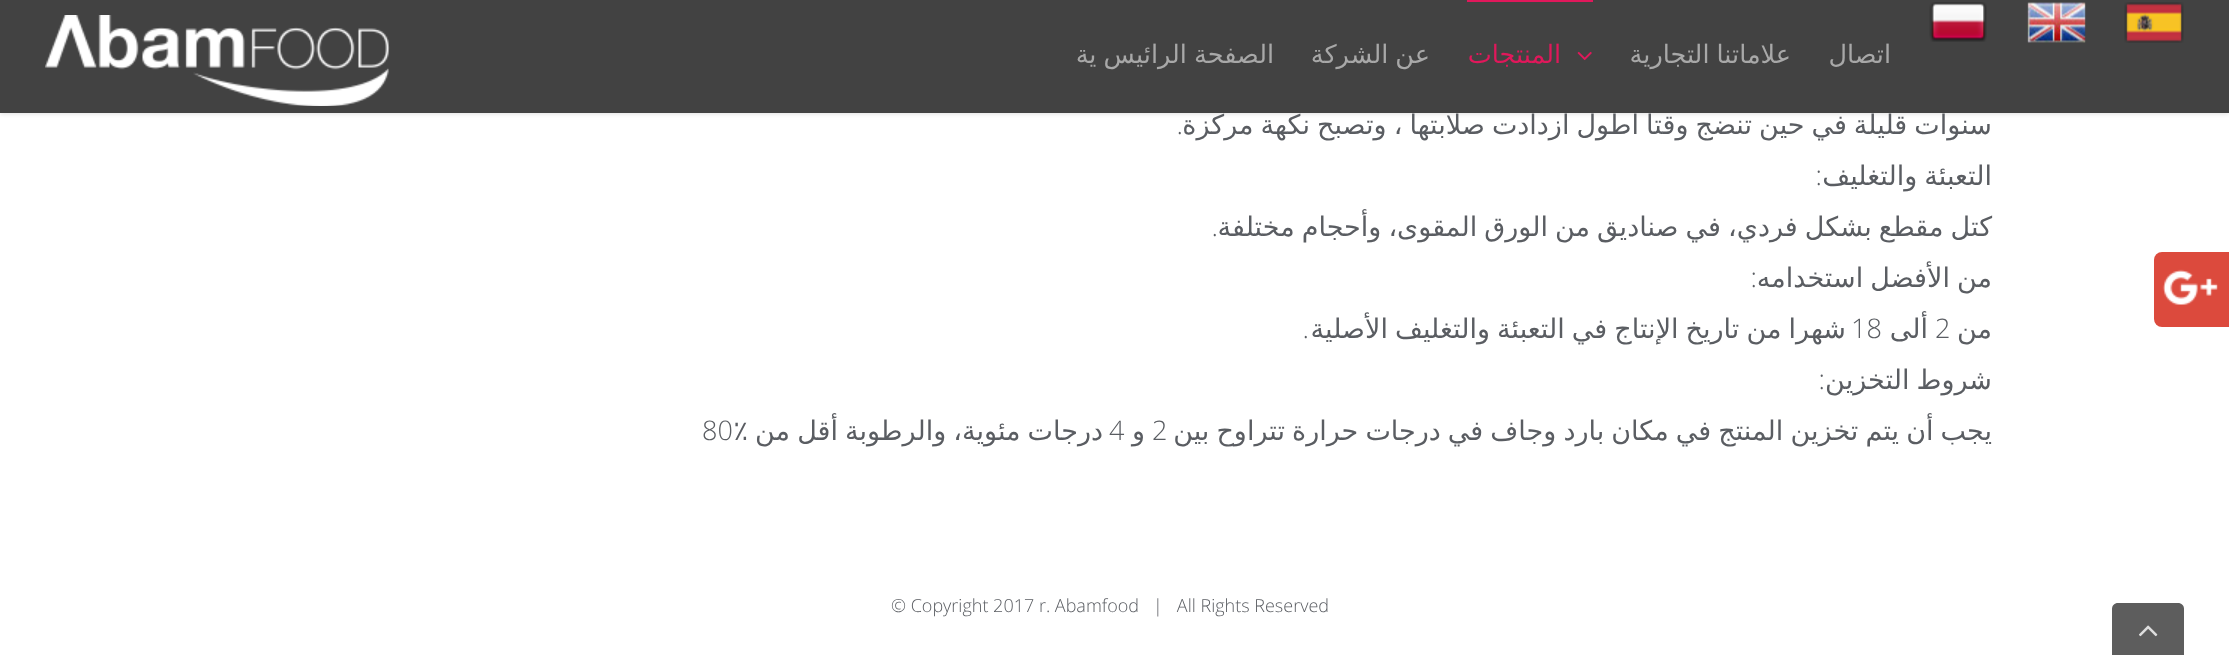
<svg xmlns="http://www.w3.org/2000/svg" xmlns:xlink="http://www.w3.org/1999/xlink" width="2229" height="655" viewBox="0 0 2229 655">
<style>
.cls-1{font:27px DejaVu Sans;direction:rtl;fill:#5a5d62}
.cls-2{font:25.5px DejaVu Sans;direction:rtl;fill:#a8a8a8}
.cls-3{font:25.5px DejaVu Sans;direction:rtl;fill:#e0185b}
.cls-4{font:300 27px Open Sans;direction:rtl;fill:#5a5d62}
.cls-5{font:300 27px Open Sans;fill:#5a5d62}
.cls-6{font:300 18px Open Sans;fill:#5a5d62}
</style>
<rect width="100%" height="100%" fill="#ffffff"/>
<rect fill="#dc4a3d" x="2154" y="252" width="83" height="75" rx="8"/>
<image xlink:href="image0.png" x="2162" y="269" width="56" height="36"/>
<rect fill="#000000" fill-opacity="0.12" filter="blur(2px)" x="0" y="2" width="2229" height="112"/>
<path fill="#5d5d5d" d="M2118 603H2178C2181.5 603 2184 605.5 2184 609V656H2112V609C2112 605.5 2114.5 603 2118 603Z"/>
<image xlink:href="image6.png" x="2139" y="625" width="19" height="12"/>
<text class="cls-1" x="1847" y="134" word-spacing="-1.5">في حين تنضج وقتا أطول ازدادت صلابتها ، وتصبح نكهة مركزة</text>
<rect fill="#424242" x="0" y="0" width="2229" height="113"/>
<image xlink:href="image1.png" x="2124" y="2" width="60" height="41"/>
<image xlink:href="image2.png" x="2027" y="2" width="59" height="41"/>
<image xlink:href="image3.png" x="1929" y="2" width="58" height="40"/>
<text class="cls-2" x="1891" y="63">اتصال</text>
<text class="cls-2" x="1791" y="63" word-spacing="-1">علاماتنا التجارية</text>
<image xlink:href="image4.png" x="1577" y="51" width="15" height="10"/>
<text class="cls-3" x="1561" y="63">المنتجات</text>
<rect fill="#e0185b" x="1467" y="0" width="126" height="2"/>
<text class="cls-2" x="1430" y="63" word-spacing="-1">عن الشركة</text>
<text class="cls-2" x="1274" y="63" word-spacing="-1">الصفحة الرائيس ية</text>
<image xlink:href="image5.png" x="45" y="15" width="345" height="91"/>
<text class="cls-1" x="1992" y="134" word-spacing="-1.5">سنوات قليلة</text>
<text class="cls-4" x="1183" y="134">.</text>
<text class="cls-1" x="1992" y="185" word-spacing="-1.5">التعبئة والتغليف</text>
<text class="cls-4" x="1822" y="185">:</text>
<text class="cls-1" x="1992" y="236" word-spacing="-1.5">كتل مقطع بشكل فردي، في صناديق من الورق المقوى، وأحجام مختلفة</text>
<text class="cls-4" x="1218" y="236">.</text>
<text class="cls-1" x="1992" y="287" word-spacing="-1.5">من الأفضل استخدامه</text>
<text class="cls-4" x="1757" y="287">:</text>
<text class="cls-1" x="1992" y="338">من</text>
<text class="cls-5" x="1935" y="338">2</text>
<text class="cls-1" x="1928" y="338">ألى</text>
<text class="cls-5" x="1851" y="338">18</text>
<text class="cls-1" x="1846" y="338" word-spacing="-1.5">شهرا من تاريخ الإنتاج في التعبئة والتغليف الأصلية</text>
<text class="cls-4" x="1309" y="338">.</text>
<text class="cls-1" x="1992" y="389" word-spacing="-1.5">شروط التخزين</text>
<text class="cls-4" x="1825" y="389">:</text>
<text class="cls-1" x="1992" y="440" word-spacing="-1.5">يجب أن يتم تخزين المنتج في مكان بارد وجاف في درجات حرارة تتراوح بين</text>
<text class="cls-5" x="1152" y="440">2</text>
<text class="cls-1" x="1145" y="440">و</text>
<text class="cls-5" x="1109" y="440">4</text>
<text class="cls-1" x="1103" y="440" word-spacing="-1.5">درجات مئوية، والرطوبة أقل من ٪</text>
<text class="cls-5" x="702" y="440">80</text>
<text class="cls-6" xml:space="preserve" x="891" y="612">© Copyright 2017 r. Abamfood   |   All Rights Reserved</text>
</svg>
